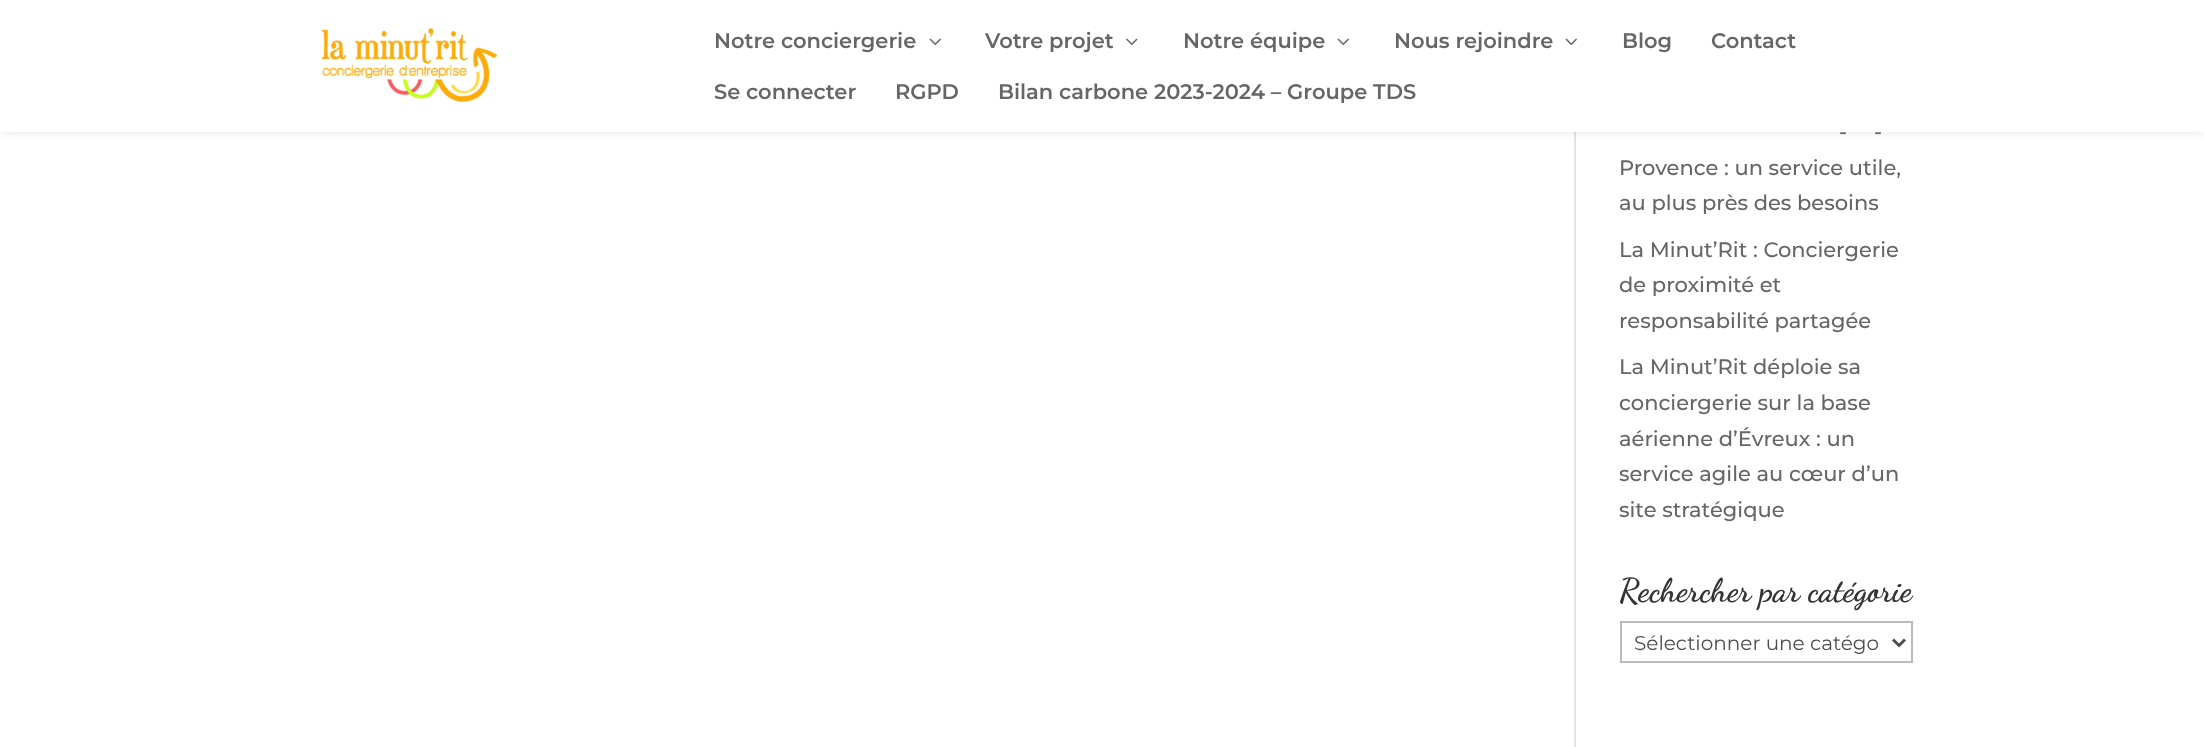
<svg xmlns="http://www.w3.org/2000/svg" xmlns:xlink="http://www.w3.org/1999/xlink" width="2204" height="747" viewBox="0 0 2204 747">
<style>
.cls-1{font:600 21px Montserrat;fill:#666666}
.cls-2{font:500 21px Montserrat;fill:#666666}
.cls-3{font:bold 33px Dancing Script;fill:#333333}
.cls-4{font:20px Montserrat;fill:#4e4e4e}
</style>
<rect width="100%" height="100%" fill="#ffffff"/>
<rect fill="#e2e2e2" x="1574" y="132" width="2" height="615"/>
<rect fill="#000000" fill-opacity="0.1" filter="blur(5px)" x="0" y="0" width="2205" height="132"/>
<rect fill="#ffffff" x="0" y="0" width="2204" height="132"/>
<image xlink:href="image0.png" x="322" y="28" width="175" height="74"/>
<image xlink:href="image1.png" x="929" y="38" width="12" height="7"/>
<image xlink:href="image2.png" x="1126" y="38" width="12" height="7"/>
<image xlink:href="image1.png" x="1337" y="38" width="12" height="7"/>
<image xlink:href="image1.png" x="1565" y="38" width="12" height="7"/>
<rect fill="none" stroke="#bbbbbb" stroke-width="2" x="1621" y="622" width="291" height="40"/>
<path fill="none" stroke="#4e4e4e" stroke-width="3" d="M1893 639.5L1899 645.5L1905 639.5"/>
<text class="cls-1" x="714" y="48">Notre conciergerie</text>
<text class="cls-1" x="985" y="48">Votre projet</text>
<text class="cls-1" x="1183" y="48">Notre équipe</text>
<text class="cls-1" x="1394" y="48">Nous rejoindre</text>
<text class="cls-1" x="1622" y="48">Blog</text>
<text class="cls-1" x="1711" y="48">Contact</text>
<text class="cls-1" x="714" y="99">Se connecter</text>
<text class="cls-1" x="895" y="99">RGPD</text>
<text class="cls-1" x="998" y="99">Bilan carbone 2023-2024 – Groupe TDS</text>
<text class="cls-2" x="1839" y="139">-</text>
<text class="cls-2" x="1874" y="139">-</text>
<text class="cls-2"><tspan x="1619" y="175">Provence : un service utile,</tspan><tspan x="1619" y="210">au plus près des besoins</tspan></text>
<text class="cls-2"><tspan x="1619" y="257">La Minut’Rit : Conciergerie</tspan><tspan x="1619" y="292">de proximité et</tspan><tspan x="1619" y="328">responsabilité partagée</tspan></text>
<text class="cls-2"><tspan x="1619" y="374">La Minut’Rit déploie sa</tspan><tspan x="1619" y="410">conciergerie sur la base</tspan><tspan x="1619" y="446">aérienne d’Évreux : un</tspan><tspan x="1619" y="481">service agile au cœur d’un</tspan><tspan x="1619" y="517">site stratégique</tspan></text>
<text class="cls-3" x="1619" y="601">Rechercher par catégorie</text>
<text class="cls-4" x="1634" y="650">Sélectionner une catégo</text>
</svg>
